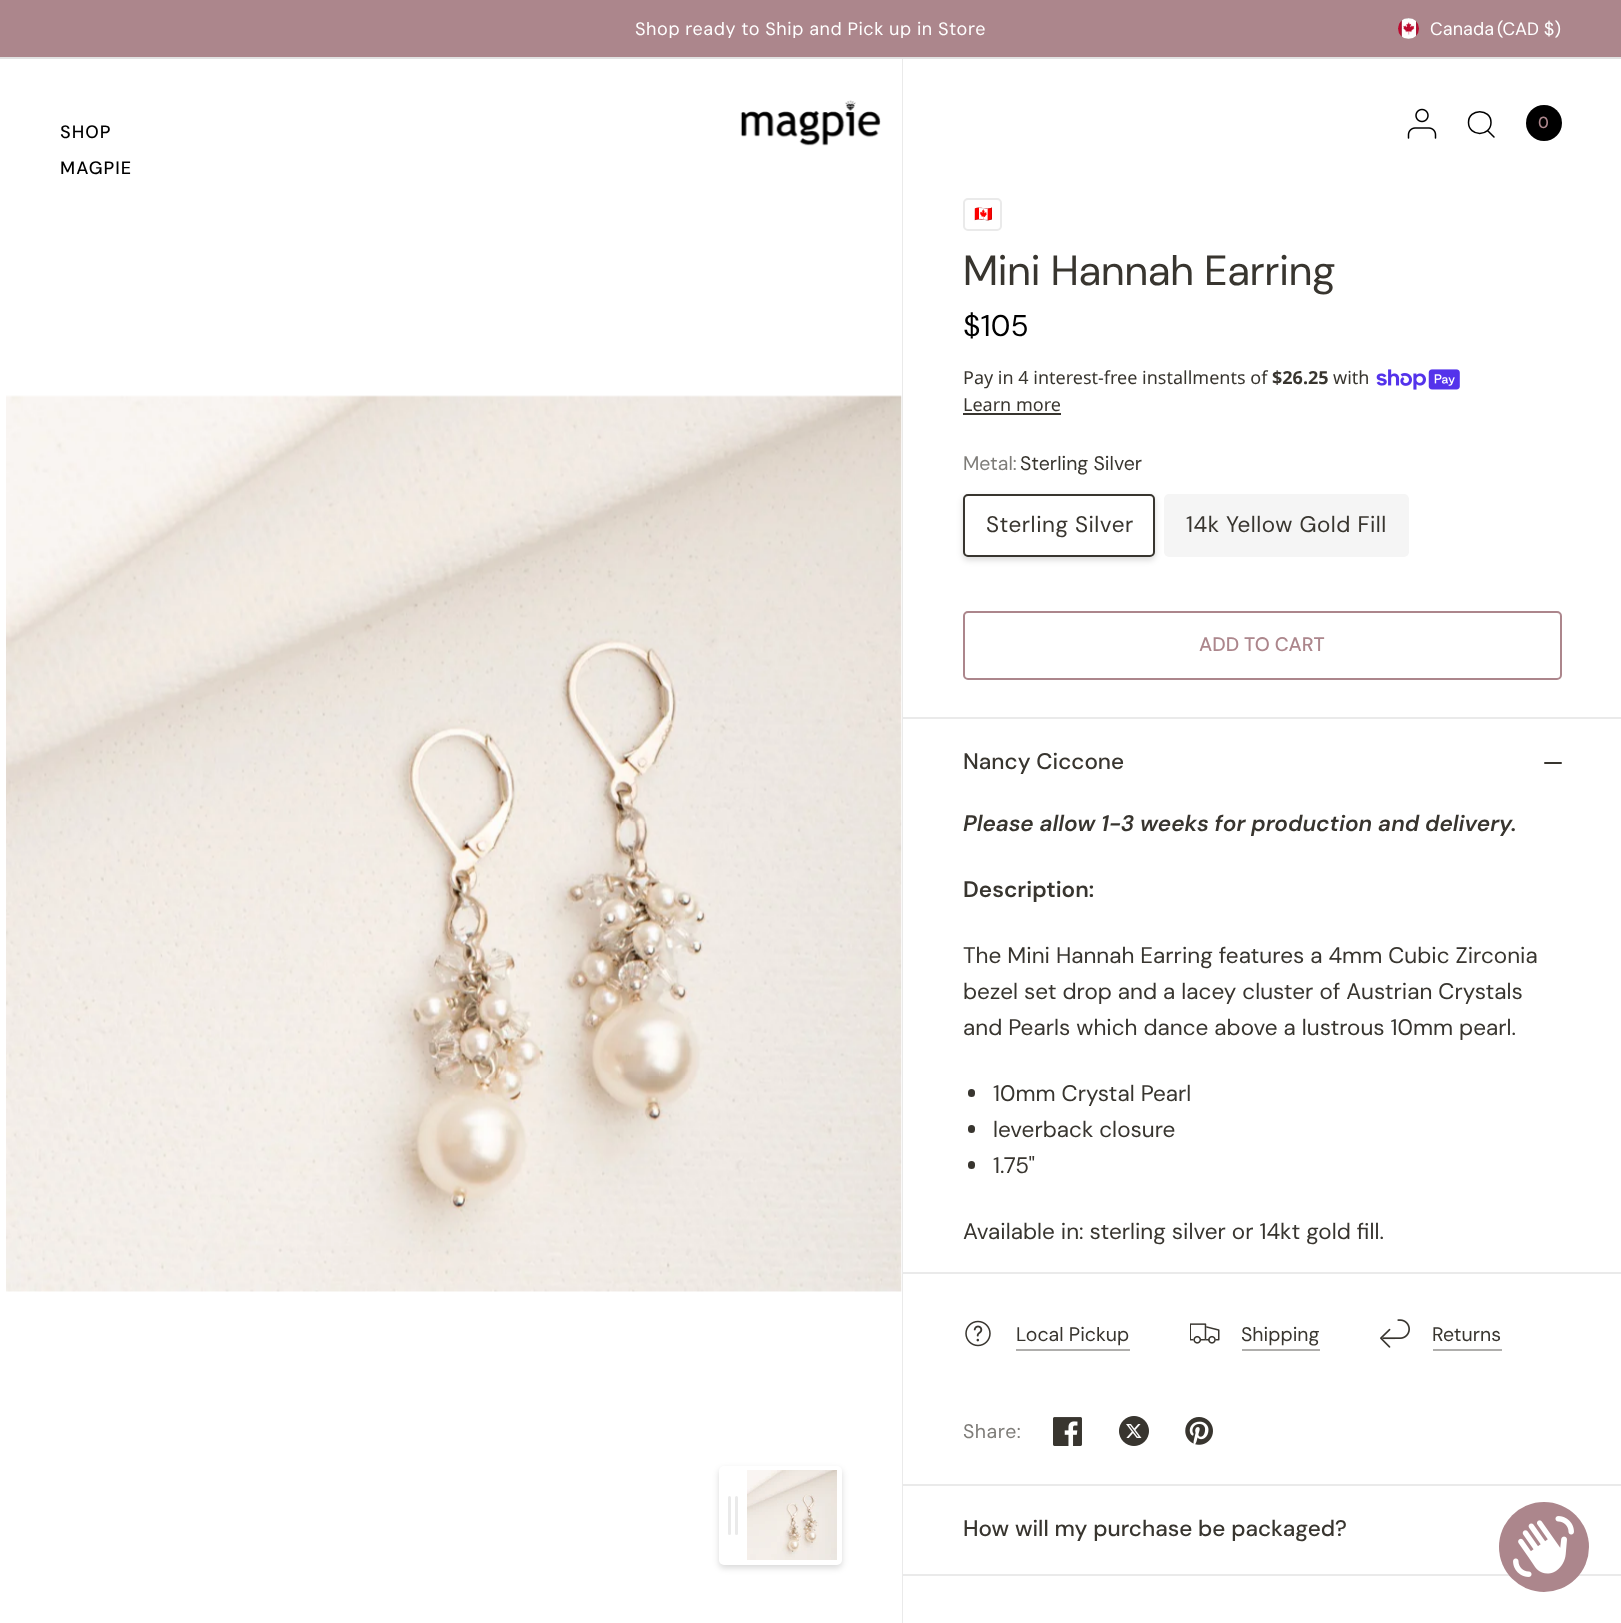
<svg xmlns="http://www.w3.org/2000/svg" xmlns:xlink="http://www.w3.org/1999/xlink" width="1621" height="1623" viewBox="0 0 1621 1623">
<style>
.cls-1{font:18px DM Sans;letter-spacing:0.55px;fill:#ffffff}
.cls-2{font:18px DM Sans;fill:#ffffff}
.cls-3{font:500 16px 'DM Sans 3';fill:#ac868c}
.cls-4{font:500 18px 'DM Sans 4';letter-spacing:1px;fill:#000000}
.cls-5{font:15px Noto Color Emoji;fill:#38352f}
.cls-6{font:42px 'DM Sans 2';fill:#38352f}
.cls-7{font:30px DM Sans;fill:#000000}
.cls-8{font:18px Noto Sans;fill:#38352f}
.cls-9{font:bold 18px Noto Sans;fill:#38352f}
.cls-10{font:19.5px 'DM Sans 3';fill:#7e7c78}
.cls-11{font:19.5px 'DM Sans 3';fill:#38352f}
.cls-12{font:22.5px 'DM Sans 4';letter-spacing:0.5px;fill:#38352f}
.cls-13{font:500 19.5px 'DM Sans 2';fill:#ac868c}
.cls-14{font:500 22.5px DM Sans;fill:#38352f}
.cls-15{font:italic 600 22.5px DM Sans;fill:#38352f}
.cls-16{font:600 22.5px DM Sans;fill:#38352f}
.cls-17{font:22.5px 'DM Sans 4';fill:#38352f}
.cls-18{font:19.5px 'DM Sans 3';letter-spacing:0.5px;fill:#7e7c78}
</style>
<defs>
<clipPath id="clip1"><rect x="482" y="20" width="660" height="18"/></clipPath>
</defs>
<rect width="100%" height="100%" fill="#ffffff"/>
<rect fill="#ac868c" x="0" y="0" width="1621" height="57"/>
<rect fill="#e2e2e2" x="0" y="57" width="1621" height="2"/>
<image xlink:href="image0.png" x="1398" y="18" width="21" height="21"/>
<image xlink:href="image1.png" x="740" y="100" width="141" height="46"/>
<image xlink:href="image2.png" x="1407" y="108" width="30" height="31"/>
<path fill="none" stroke="#000000" stroke-width="1.5" stroke-linecap="round" stroke-linejoin="round" d="M1487.5 130.5L1494 137M1491 122.5C1491 137 1468.5 137 1468.5 122.5C1468.5 108 1491 108 1491 122.5Z"/>
<circle fill="#000000" cx="1544" cy="123" r="18"/>
<image xlink:href="image3.png" x="6" y="395" width="896" height="897"/>
<rect fill="#000000" fill-opacity="0.15" filter="blur(3px)" x="719" y="1469" width="123" height="99" rx="5"/>
<rect fill="#ffffff" x="719" y="1466" width="123" height="99" rx="5"/>
<rect fill="#eaeaea" x="728" y="1496" width="3" height="39" rx="1.5"/>
<rect fill="#eaeaea" x="735" y="1496" width="3" height="39" rx="1.5"/>
<image xlink:href="image4.png" x="747" y="1470" width="90" height="90"/>
<rect fill="#eaeaea" x="902" y="59" width="1" height="1564"/>
<rect fill="none" stroke="#eaeaea" stroke-width="2" x="964" y="199" width="37" height="31" rx="4"/>
<image xlink:href="image5.png" x="1376" y="369" width="84" height="21"/>
<rect fill="#38352f" x="963" y="413" width="98" height="2"/>
<rect fill="#f5f5f5" x="1164" y="494" width="245" height="63" rx="5"/>
<rect fill="#000000" fill-opacity="0.15" filter="blur(3px)" x="963" y="497" width="192" height="63" rx="5"/>
<rect fill="#ffffff" stroke="#38352f" stroke-width="2" x="964" y="495" width="190" height="61" rx="4"/>
<rect fill="none" stroke="#ac868c" stroke-width="2" x="964" y="612" width="597" height="67" rx="4"/>
<rect fill="#eaeaea" x="903" y="717" width="718" height="2"/>
<rect fill="#eaeaea" x="903" y="1272" width="718" height="2"/>
<rect fill="#38352f" x="1544" y="762" width="18" height="2" rx="1"/>
<rect fill="#38352f" x="968" y="1089" width="7" height="8" rx="3.5"/>
<rect fill="#38352f" x="968" y="1125" width="7" height="8" rx="3.5"/>
<rect fill="#38352f" x="968" y="1161" width="7" height="8" rx="3.5"/>
<image xlink:href="image6.png" x="965" y="1320" width="26" height="27"/>
<rect fill="#afaeac" x="1016" y="1349" width="114" height="2"/>
<image xlink:href="image7.png" x="1190" y="1323" width="30" height="21"/>
<rect fill="#afaeac" x="1242" y="1349" width="78" height="2"/>
<image xlink:href="image8.png" x="1380" y="1319" width="30" height="29"/>
<rect fill="#afaeac" x="1433" y="1349" width="69" height="2"/>
<image xlink:href="image9.png" x="1053" y="1417" width="29" height="29"/>
<image xlink:href="image10.png" x="1119" y="1416" width="30" height="30"/>
<image xlink:href="image11.png" x="1185" y="1417" width="28" height="28"/>
<rect fill="#eaeaea" x="903" y="1484" width="718" height="2"/>
<rect fill="#eaeaea" x="903" y="1574" width="718" height="2"/>
<circle fill="#ac868c" cx="1544" cy="1547" r="45"/>
<image xlink:href="image12.png" x="1513" y="1516" width="61" height="61"/>
<g clip-path="url(#clip1)">
<text class="cls-1" x="635" y="35" word-spacing="-0.25">Shop ready to Ship and Pick up in Store</text>
</g>
<text class="cls-2" x="1430" y="35">Canada</text>
<text class="cls-2" x="1497" y="35">(CAD $)</text>
<text class="cls-3" x="1538" y="128">0</text>
<text class="cls-4" x="60" y="138">SHOP</text>
<text class="cls-4" x="60" y="174">MAGPIE</text>
<text class="cls-5" x="974" y="219">🇨🇦</text>
<text class="cls-6" x="963" y="285">Mini Hannah Earring</text>
<text class="cls-7" x="963" y="336">$105</text>
<text class="cls-8" x="963" y="384">Pay in 4 interest-free installments of</text>
<text class="cls-9" x="1272" y="384">$26.25</text>
<text class="cls-8" x="1333" y="384">with</text>
<text class="cls-8" x="963" y="411">Learn more</text>
<text class="cls-10" x="963" y="470">Metal:</text>
<text class="cls-11" x="1020" y="470">Sterling Silver</text>
<text class="cls-12" x="986" y="532">Sterling Silver</text>
<text class="cls-12" x="1186" y="532">14k Yellow Gold Fill</text>
<text class="cls-13" x="1199" y="651">ADD TO CART</text>
<text class="cls-14" x="963" y="769">Nancy Ciccone</text>
<text class="cls-15" x="963" y="831">Please allow 1-3 weeks for production and delivery.</text>
<text class="cls-16" x="963" y="897">Description:</text>
<text class="cls-17"><tspan x="963" y="963">The Mini Hannah Earring features a 4mm Cubic Zirconia</tspan><tspan x="963" y="999">bezel set drop and a lacey cluster of Austrian Crystals</tspan><tspan x="963" y="1035">and Pearls which dance above a lustrous 10mm pearl.</tspan></text>
<text class="cls-17"><tspan x="993" y="1101">10mm Crystal Pearl</tspan><tspan x="993" y="1137">leverback closure</tspan><tspan x="993" y="1173">1.75"</tspan></text>
<text class="cls-17" x="963" y="1239">Available in: sterling silver or 14kt gold fill.</text>
<text class="cls-11" x="1016" y="1341">Local Pickup</text>
<text class="cls-11" x="1241" y="1341">Shipping</text>
<text class="cls-11" x="1432" y="1341">Returns</text>
<text class="cls-18" x="963" y="1438">Share:</text>
<text class="cls-14" x="963" y="1536">How will my purchase be packaged?</text>
</svg>
